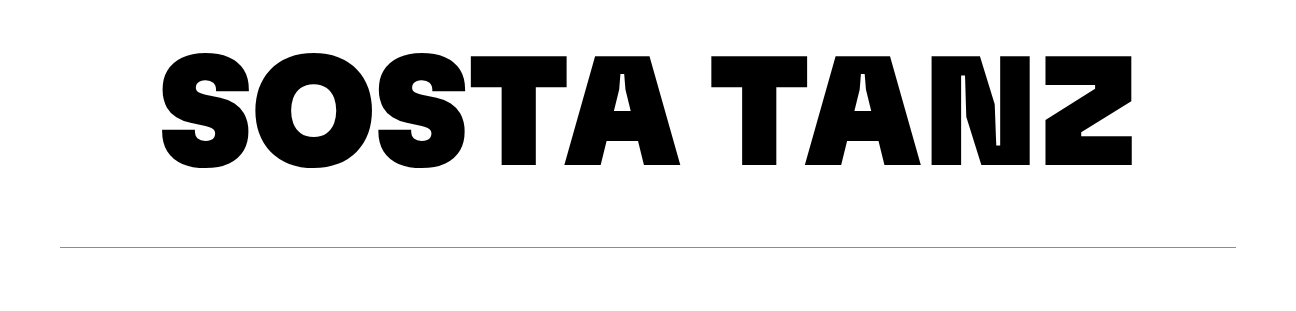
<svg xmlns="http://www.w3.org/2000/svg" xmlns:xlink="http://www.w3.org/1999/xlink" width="1296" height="311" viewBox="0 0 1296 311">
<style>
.cls-1{font:900 155.5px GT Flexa;fill:#000000}
</style>
<rect width="100%" height="100%" fill="#ffffff"/>
<rect fill="#8d8d8d" x="60" y="247" width="1176" height="1"/>
<text class="cls-1" x="159" y="165">SOSTA TANZ</text>
</svg>
